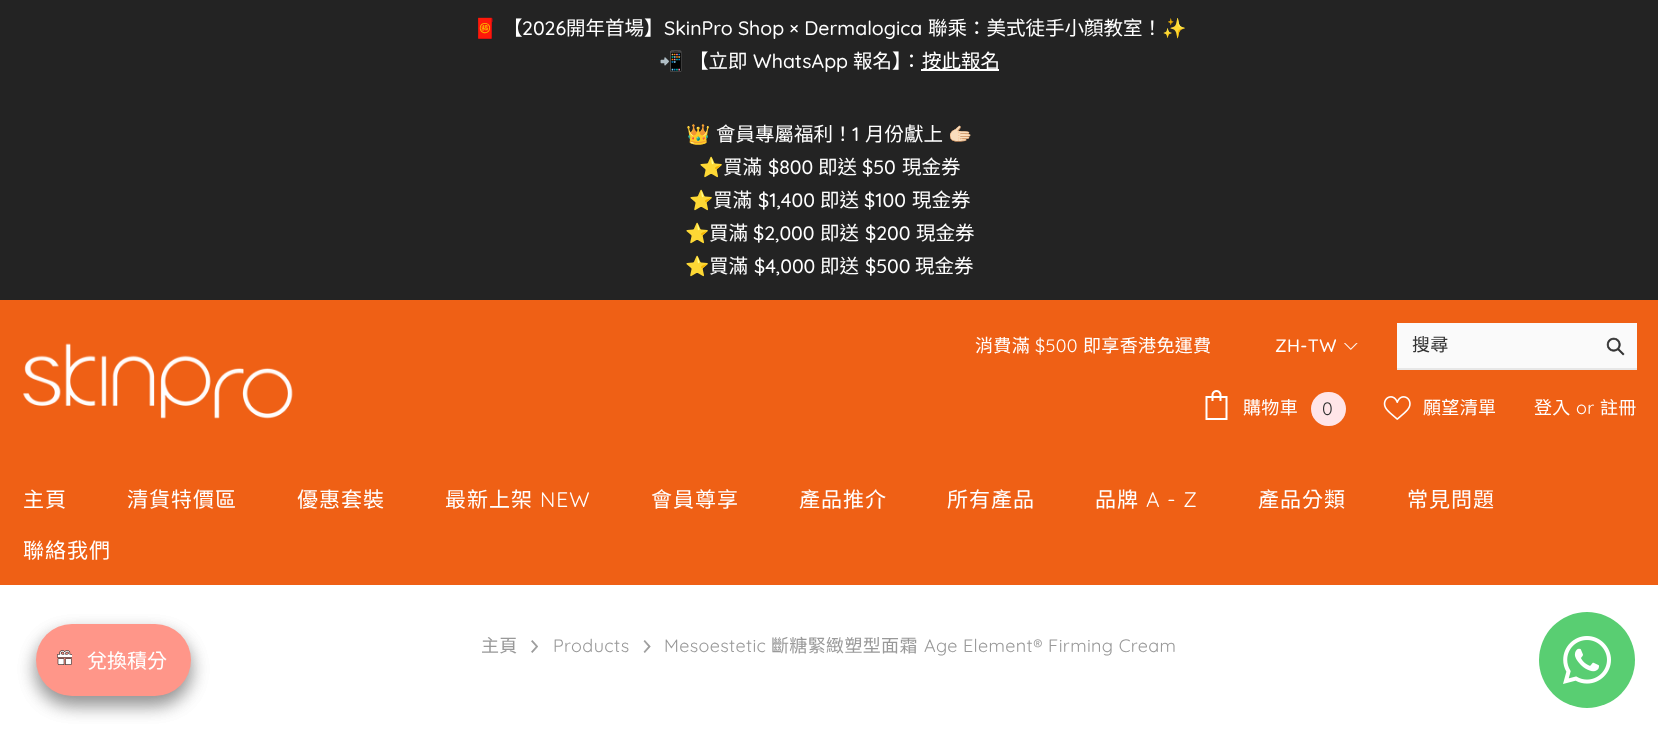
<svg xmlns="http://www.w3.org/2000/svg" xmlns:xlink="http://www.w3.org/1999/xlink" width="1658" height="732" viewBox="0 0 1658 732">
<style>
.cls-1{font:19.5px Noto Color Emoji;fill:#ffffff}
.cls-2{font:19.5px Noto Sans CJK TC;fill:#ffffff}
.cls-3{font:500 19.5px Quicksand;fill:#ffffff}
.cls-4{font:18px Noto Sans CJK TC;letter-spacing:0.35px;fill:#ffffff}
.cls-5{font:18px Quicksand;letter-spacing:0.35px;fill:#ffffff}
.cls-6{font:500 18px Quicksand;letter-spacing:0.35px;fill:#ffffff}
.cls-7{font:18px Noto Sans CJK TC;letter-spacing:0.35px;fill:#323232}
.cls-8{font:18px Quicksand;fill:#323232}
.cls-9{font:21px Noto Sans CJK TC;letter-spacing:1px;fill:#ffffff}
.cls-10{font:21px Quicksand;letter-spacing:1px;fill:#ffffff}
.cls-11{font:18px Noto Sans CJK TC;letter-spacing:0.35px;fill:#999999}
.cls-12{font:18px Quicksand;letter-spacing:0.35px;fill:#999999}
.cls-13{font:20px Noto Sans CJK TC;fill:#ffffff}
</style>
<rect width="100%" height="100%" fill="#ffffff"/>
<rect fill="#232323" x="0" y="0" width="1658" height="300"/>
<rect fill="#ffffff" x="921" y="69" width="78" height="2"/>
<rect fill="#ef6015" x="0" y="300" width="1658" height="285"/>
<image xlink:href="image0.png" x="23" y="343" width="270" height="76"/>
<image xlink:href="image1.png" x="1344" y="343" width="14" height="7"/>
<rect fill="#fafafa" x="1397" y="323" width="240" height="45"/>
<rect fill="#e7e7e7" x="1397" y="368" width="240" height="2"/>
<image xlink:href="image2.png" x="1606" y="337" width="19" height="19"/>
<image xlink:href="image3.png" x="1205" y="390" width="23" height="30"/>
<rect fill="#ffe5e8" x="1311" y="392" width="35" height="34" rx="17"/>
<image xlink:href="image4.png" x="1383" y="396" width="28" height="24"/>
<image xlink:href="image5.png" x="531" y="640" width="7" height="13"/>
<image xlink:href="image6.png" x="643" y="640" width="8" height="13"/>
<rect fill="#000000" fill-opacity="0.25" filter="blur(9px)" x="36" y="633" width="155" height="72" rx="36"/>
<circle fill="#59ce72" cx="1587" cy="660" r="48"/>
<image xlink:href="image7.png" x="1563" y="636" width="48" height="48"/>
<rect fill="#000000" fill-opacity="0.25" filter="blur(9px)" x="36" y="633" width="155" height="72" rx="36"/>
<rect fill="#ff9689" x="36" y="624" width="155" height="72" rx="36"/>
<image xlink:href="image8.png" x="57" y="650" width="15" height="15"/>
<text class="cls-1" x="473" y="35">🧧</text>
<text class="cls-2" x="503" y="35">【</text>
<text class="cls-3" x="522" y="35">2026</text>
<text class="cls-2" x="566" y="35">開年首場】</text>
<text class="cls-3" x="664" y="35">SkinPro Shop × Dermalogica</text>
<text class="cls-2" x="928" y="35">聯乘：美式徒手小顔教室！</text>
<text class="cls-1" x="1162" y="35">✨</text>
<text class="cls-1" x="659" y="68">📲</text>
<text class="cls-2" x="689" y="68">【立即</text>
<text class="cls-3" x="753" y="68">WhatsApp</text>
<text class="cls-2" x="853" y="68">報名】：</text>
<text class="cls-2" x="922" y="68">按此報名</text>
<text class="cls-1" x="686" y="141">👑</text>
<text class="cls-2" x="716" y="141">會員專屬福利！</text>
<text class="cls-3" x="852" y="141">1</text>
<text class="cls-2" x="865" y="141">月份獻上</text>
<text class="cls-1" x="948" y="141">🫱🏻</text>
<text class="cls-1" x="699" y="174">⭐</text>
<text class="cls-2" x="723" y="174">買滿</text>
<text class="cls-3" x="768" y="174">$800</text>
<text class="cls-2" x="818" y="174">即送</text>
<text class="cls-3" x="862" y="174">$50</text>
<text class="cls-2" x="902" y="174">現金券</text>
<text class="cls-1" x="689" y="207">⭐</text>
<text class="cls-2" x="713" y="207">買滿</text>
<text class="cls-3" x="758" y="207">$1,400</text>
<text class="cls-2" x="820" y="207">即送</text>
<text class="cls-3" x="864" y="207">$100</text>
<text class="cls-2" x="912" y="207">現金券</text>
<text class="cls-1" x="685" y="240">⭐</text>
<text class="cls-2" x="709" y="240">買滿</text>
<text class="cls-3" x="753" y="240">$2,000</text>
<text class="cls-2" x="820" y="240">即送</text>
<text class="cls-3" x="865" y="240">$200</text>
<text class="cls-2" x="916" y="240">現金券</text>
<text class="cls-1" x="685" y="273">⭐</text>
<text class="cls-2" x="709" y="273">買滿</text>
<text class="cls-3" x="754" y="273">$4,000</text>
<text class="cls-2" x="820" y="273">即送</text>
<text class="cls-3" x="865" y="273">$500</text>
<text class="cls-2" x="915" y="273">現金券</text>
<text class="cls-4" x="975" y="352">消費滿</text>
<text class="cls-5" x="1035" y="352">$500</text>
<text class="cls-4" x="1083" y="352">即享香港免運費</text>
<text class="cls-6" x="1275" y="352">ZH-TW</text>
<text class="cls-7" x="1412" y="351">搜尋</text>
<text class="cls-4" x="1243" y="414">購物車</text>
<text class="cls-8" x="1322" y="415">0</text>
<text class="cls-4" x="1423" y="414">願望清單</text>
<text class="cls-4" x="1534" y="414">登入</text>
<text class="cls-5" x="1576" y="414">or</text>
<text class="cls-4" x="1600" y="414">註冊</text>
<text class="cls-9" x="23" y="507">主頁</text>
<text class="cls-9" x="127" y="507">清貨特價區</text>
<text class="cls-9" x="297" y="507">優惠套裝</text>
<text class="cls-9" x="445" y="507">最新上架</text>
<text class="cls-10" x="540" y="507">NEW</text>
<text class="cls-9" x="651" y="507">會員尊享</text>
<text class="cls-9" x="799" y="507">產品推介</text>
<text class="cls-9" x="947" y="507">所有產品</text>
<text class="cls-9" x="1095" y="507">品牌</text>
<text class="cls-10" x="1146" y="507">A - Z</text>
<text class="cls-9" x="1258" y="507">產品分類</text>
<text class="cls-9" x="1407" y="507">常見問題</text>
<text class="cls-9" x="23" y="558">聯絡我們</text>
<text class="cls-11" x="481" y="652">主頁</text>
<text class="cls-12" x="553" y="652">Products</text>
<text class="cls-12" x="664" y="652">Mesoestetic</text>
<text class="cls-11" x="771" y="652">斷糖緊緻塑型面霜</text>
<text class="cls-12" x="924" y="652">Age Element® Firming Cream</text>
<text class="cls-13" x="87" y="668">兌換積分</text>
</svg>
